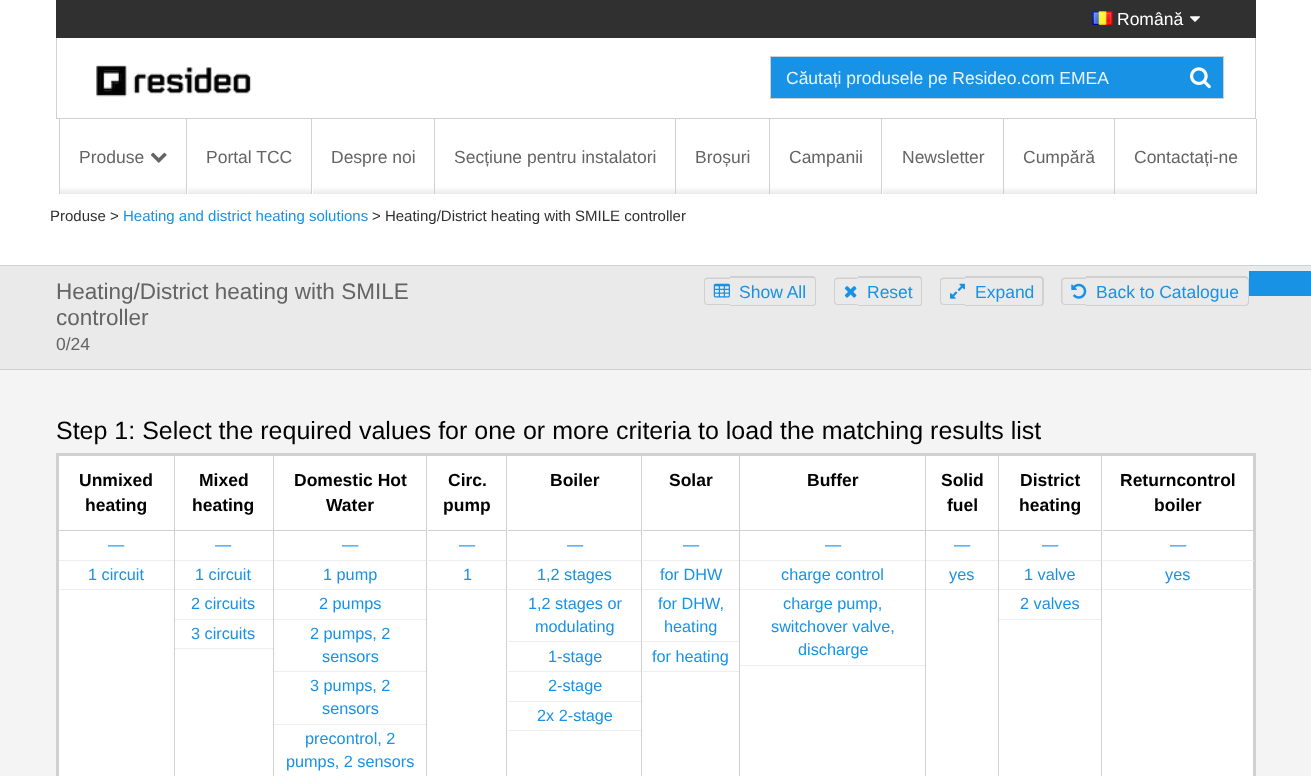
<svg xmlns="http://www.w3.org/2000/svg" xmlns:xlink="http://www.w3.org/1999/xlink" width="1311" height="776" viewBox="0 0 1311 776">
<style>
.cls-1{font:17.5px Liberation Sans;fill:#ffffff}
.cls-2{font:17.5px Liberation Sans;fill:#e8f4fc}
.cls-3{font:17.5px Liberation Sans;fill:#646464}
.cls-4{font:15px Liberation Sans;fill:#303030}
.cls-5{font:15px Liberation Sans;fill:#1792e5}
.cls-6{font:22.5px Liberation Sans;fill:#646464}
.cls-7{font:17.5px Liberation Sans;fill:#1792e5}
.cls-8{font:25px Liberation Sans;fill:#000000}
.cls-9{font:bold 17.5px Liberation Sans;fill:#000000}
.cls-10{font:16.25px Liberation Sans;fill:#1792e5}
</style>
<defs>
<linearGradient id="g1" gradientUnits="userSpaceOnUse" x1="123" y1="119" x2="123" y2="194"><stop offset="0" stop-color="#ffffff"/><stop offset="0.9" stop-color="#ffffff"/><stop offset="1" stop-color="#eaeaea"/></linearGradient>
<linearGradient id="g2" gradientUnits="userSpaceOnUse" x1="249" y1="119" x2="249" y2="194"><stop offset="0" stop-color="#ffffff"/><stop offset="0.9" stop-color="#ffffff"/><stop offset="1" stop-color="#eaeaea"/></linearGradient>
<linearGradient id="g3" gradientUnits="userSpaceOnUse" x1="373" y1="119" x2="373" y2="194"><stop offset="0" stop-color="#ffffff"/><stop offset="0.9" stop-color="#ffffff"/><stop offset="1" stop-color="#eaeaea"/></linearGradient>
<linearGradient id="g4" gradientUnits="userSpaceOnUse" x1="555" y1="119" x2="555" y2="194"><stop offset="0" stop-color="#ffffff"/><stop offset="0.9" stop-color="#ffffff"/><stop offset="1" stop-color="#eaeaea"/></linearGradient>
<linearGradient id="g5" gradientUnits="userSpaceOnUse" x1="723" y1="119" x2="723" y2="194"><stop offset="0" stop-color="#ffffff"/><stop offset="0.9" stop-color="#ffffff"/><stop offset="1" stop-color="#eaeaea"/></linearGradient>
<linearGradient id="g6" gradientUnits="userSpaceOnUse" x1="826" y1="119" x2="826" y2="194"><stop offset="0" stop-color="#ffffff"/><stop offset="0.9" stop-color="#ffffff"/><stop offset="1" stop-color="#eaeaea"/></linearGradient>
<linearGradient id="g7" gradientUnits="userSpaceOnUse" x1="943" y1="119" x2="943" y2="194"><stop offset="0" stop-color="#ffffff"/><stop offset="0.9" stop-color="#ffffff"/><stop offset="1" stop-color="#eaeaea"/></linearGradient>
<linearGradient id="g8" gradientUnits="userSpaceOnUse" x1="1059" y1="119" x2="1059" y2="194"><stop offset="0" stop-color="#ffffff"/><stop offset="0.9" stop-color="#ffffff"/><stop offset="1" stop-color="#eaeaea"/></linearGradient>
<linearGradient id="g9" gradientUnits="userSpaceOnUse" x1="1186" y1="119" x2="1186" y2="194"><stop offset="0" stop-color="#ffffff"/><stop offset="0.9" stop-color="#ffffff"/><stop offset="1" stop-color="#eaeaea"/></linearGradient>
</defs>
<rect width="100%" height="100%" fill="#ffffff"/>
<rect fill="#303030" x="56" y="0" width="1200" height="38"/>
<image xlink:href="image0.png" x="1092" y="11" width="21" height="14"/>
<image xlink:href="image1.png" x="1190" y="16" width="10" height="6"/>
<rect fill="#d0d0d0" x="1255" y="38" width="1" height="81"/>
<rect fill="#d0d0d0" x="56" y="118" width="1200" height="1"/>
<rect fill="#d0d0d0" x="56" y="38" width="1" height="81"/>
<image xlink:href="image2.png" x="96" y="65" width="156" height="32"/>
<rect fill="#1792e5" stroke="#d0d0d0" x="770.5" y="56.5" width="453" height="42"/>
<image xlink:href="image3.png" x="1190" y="67" width="21" height="22"/>
<rect fill="#d0d0d0" x="59" y="119" width="1" height="75"/>
<rect fill="url(#g1)" x="60" y="187" width="126" height="7"/>
<image xlink:href="image4.png" x="151" y="152" width="16" height="11"/>
<rect fill="#d0d0d0" x="186" y="119" width="1" height="75"/>
<rect fill="url(#g2)" x="188" y="187" width="123" height="7"/>
<rect fill="#d0d0d0" x="311" y="119" width="1" height="75"/>
<rect fill="url(#g3)" x="313" y="187" width="121" height="7"/>
<rect fill="#d0d0d0" x="434" y="119" width="1" height="75"/>
<rect fill="url(#g4)" x="435" y="187" width="240" height="7"/>
<rect fill="#d0d0d0" x="675" y="119" width="1" height="75"/>
<rect fill="url(#g5)" x="676" y="187" width="93" height="7"/>
<rect fill="#d0d0d0" x="769" y="119" width="1" height="75"/>
<rect fill="url(#g6)" x="770" y="187" width="111" height="7"/>
<rect fill="#d0d0d0" x="881" y="119" width="1" height="75"/>
<rect fill="url(#g7)" x="883" y="187" width="120" height="7"/>
<rect fill="#d0d0d0" x="1003" y="119" width="1" height="75"/>
<rect fill="url(#g8)" x="1004" y="187" width="110" height="7"/>
<rect fill="#d0d0d0" x="1256" y="119" width="1" height="75"/>
<rect fill="#d0d0d0" x="1114" y="119" width="1" height="75"/>
<rect fill="url(#g9)" x="1115" y="187" width="141" height="7"/>
<rect fill="#f4f4f4" x="0" y="370" width="1311" height="406"/>
<rect fill="#d0d0d0" x="0" y="265" width="1311" height="1"/>
<rect fill="#eaeaea" x="0" y="266" width="1311" height="103"/>
<rect fill="#d0d0d0" x="0" y="369" width="1311" height="1"/>
<path fill="#d0d0d0" fill-rule="evenodd" d="M707.5 277.5H730V305H707.5C705.5 305 704 303.5 704 301V281C704 279 705.5 277.5 707.5 277.5ZM707.5 279H730V304H707.5C706 304 705 302.5 705 301V281C705 280 706 279 707.5 279Z"/>
<path fill="#d0d0d0" fill-rule="evenodd" d="M730 276H812C815 276 816 278 816 280V302C816 305 815 306 812 306H730ZM730 278H812C814 278 815 279 815 280V302C815 304 814 305 812 305H730Z"/>
<image xlink:href="image5.png" x="713" y="283" width="17" height="15"/>
<path fill="#d0d0d0" fill-rule="evenodd" d="M837.5 277.5H857.5V305H837.5C835.5 305 834 303.5 834 301V281C834 279 835.5 277.5 837.5 277.5ZM837.5 279H857.5V304H837.5C836 304 835 302.5 835 301V281C835 280 836 279 837.5 279Z"/>
<path fill="#d0d0d0" fill-rule="evenodd" d="M858 276H919C921 276 922 278 922 280V302C922 305 921 306 919 306H858ZM858 278H919C920 278 921 279 921 280V302C921 304 920 305 919 305H858Z"/>
<image xlink:href="image6.png" x="844" y="286" width="13" height="12"/>
<path fill="#d0d0d0" fill-rule="evenodd" d="M944 277.5H965V305H944C941.5 305 940 303.5 940 301V281C940 279 941.5 277.5 944 277.5ZM944 279H965V304H944C942.5 304 941 302.5 941 301V281C941 280 942.5 279 944 279Z"/>
<path fill="#d0d0d0" fill-rule="evenodd" d="M965 276H1040C1042 276 1044 278 1044 280V302C1044 305 1042 306 1040 306H965ZM965 278H1040C1041 278 1042 279 1042 280V302C1042 304 1041 305 1040 305H965Z"/>
<image xlink:href="image7.png" x="950" y="283" width="15" height="16"/>
<path fill="#d0d0d0" fill-rule="evenodd" d="M1065 277.5H1086V305H1065C1063 305 1061 303.5 1061 301V281C1061 279 1063 277.5 1065 277.5ZM1065 279H1086V304H1065C1063.5 304 1062.5 302.5 1062.5 301V281C1062.5 280 1063.5 279 1065 279Z"/>
<path fill="#d0d0d0" fill-rule="evenodd" d="M1086 276H1245C1247 276 1249 278 1249 280V302C1249 305 1247 306 1245 306H1086ZM1086 278H1245C1246 278 1248 279 1248 280V302C1248 304 1246 305 1245 305H1086Z"/>
<image xlink:href="image8.png" x="1071" y="283" width="16" height="16"/>
<rect fill="#ffffff" stroke="#d0d0d0" stroke-width="3" x="57.5" y="454.5" width="1197" height="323"/>
<rect fill="#d0d0d0" x="174" y="455" width="1" height="321"/>
<rect fill="#d0d0d0" x="59" y="530" width="115" height="1"/>
<rect fill="#eeeeee" x="59" y="560" width="115" height="1"/>
<rect fill="#eeeeee" x="59" y="589" width="115" height="1"/>
<rect fill="#d0d0d0" x="273" y="455" width="1" height="321"/>
<rect fill="#d0d0d0" x="175" y="530" width="98" height="1"/>
<rect fill="#eeeeee" x="175" y="560" width="98" height="1"/>
<rect fill="#eeeeee" x="175" y="589" width="98" height="1"/>
<rect fill="#eeeeee" x="175" y="619" width="98" height="1"/>
<rect fill="#eeeeee" x="175" y="648" width="98" height="1"/>
<rect fill="#d0d0d0" x="426" y="455" width="1" height="321"/>
<rect fill="#d0d0d0" x="274" y="530" width="152" height="1"/>
<rect fill="#eeeeee" x="274" y="560" width="152" height="1"/>
<rect fill="#eeeeee" x="274" y="589" width="152" height="1"/>
<rect fill="#eeeeee" x="274" y="619" width="152" height="1"/>
<rect fill="#eeeeee" x="274" y="671" width="152" height="1"/>
<rect fill="#eeeeee" x="274" y="724" width="152" height="1"/>
<rect fill="#d0d0d0" x="506" y="455" width="1" height="321"/>
<rect fill="#d0d0d0" x="428" y="530" width="78" height="1"/>
<rect fill="#eeeeee" x="428" y="560" width="78" height="1"/>
<rect fill="#eeeeee" x="428" y="589" width="78" height="1"/>
<rect fill="#d0d0d0" x="641" y="455" width="1" height="321"/>
<rect fill="#d0d0d0" x="508" y="530" width="133" height="1"/>
<rect fill="#eeeeee" x="508" y="560" width="133" height="1"/>
<rect fill="#eeeeee" x="508" y="589" width="133" height="1"/>
<rect fill="#eeeeee" x="508" y="641" width="133" height="1"/>
<rect fill="#eeeeee" x="508" y="671" width="133" height="1"/>
<rect fill="#eeeeee" x="508" y="701" width="133" height="1"/>
<rect fill="#eeeeee" x="508" y="730" width="133" height="1"/>
<rect fill="#d0d0d0" x="739" y="455" width="1" height="321"/>
<rect fill="#d0d0d0" x="643" y="530" width="96" height="1"/>
<rect fill="#eeeeee" x="643" y="560" width="96" height="1"/>
<rect fill="#eeeeee" x="643" y="589" width="96" height="1"/>
<rect fill="#eeeeee" x="643" y="641" width="96" height="1"/>
<rect fill="#eeeeee" x="643" y="671" width="96" height="1"/>
<rect fill="#d0d0d0" x="925" y="455" width="1" height="321"/>
<rect fill="#d0d0d0" x="740" y="530" width="185" height="1"/>
<rect fill="#eeeeee" x="740" y="560" width="185" height="1"/>
<rect fill="#eeeeee" x="740" y="589" width="185" height="1"/>
<rect fill="#eeeeee" x="740" y="665" width="185" height="1"/>
<rect fill="#d0d0d0" x="998" y="455" width="1" height="321"/>
<rect fill="#d0d0d0" x="926" y="530" width="72" height="1"/>
<rect fill="#eeeeee" x="926" y="560" width="72" height="1"/>
<rect fill="#eeeeee" x="926" y="589" width="72" height="1"/>
<rect fill="#d0d0d0" x="1101" y="455" width="1" height="321"/>
<rect fill="#d0d0d0" x="999" y="530" width="102" height="1"/>
<rect fill="#eeeeee" x="999" y="560" width="102" height="1"/>
<rect fill="#eeeeee" x="999" y="589" width="102" height="1"/>
<rect fill="#eeeeee" x="999" y="619" width="102" height="1"/>
<rect fill="#d0d0d0" x="1103" y="530" width="151" height="1"/>
<rect fill="#eeeeee" x="1103" y="560" width="151" height="1"/>
<rect fill="#eeeeee" x="1103" y="589" width="151" height="1"/>
<rect fill="#1792e5" x="1249" y="271" width="62" height="25"/>
<text class="cls-1" x="1117" y="25">Română</text>
<text class="cls-2" x="786" y="84">Căutați produsele pe Resideo.com EMEA</text>
<text class="cls-3" x="79" y="163">Produse</text>
<text class="cls-3" x="206" y="163">Portal TCC</text>
<text class="cls-3" x="331" y="163">Despre noi</text>
<text class="cls-3" x="454" y="163">Secțiune pentru instalatori</text>
<text class="cls-3" x="695" y="163">Broșuri</text>
<text class="cls-3" x="789" y="163">Campanii</text>
<text class="cls-3" x="902" y="163">Newsletter</text>
<text class="cls-3" x="1023" y="163">Cumpără</text>
<text class="cls-3" x="1134" y="163">Contactați-ne</text>
<text class="cls-4" x="50" y="221">Produse &gt;</text>
<text class="cls-5" x="123" y="221">Heating and district heating solutions</text>
<text class="cls-4" x="372" y="221">&gt; Heating/District heating with SMILE controller</text>
<text class="cls-6"><tspan x="56" y="299">Heating/District heating with SMILE</tspan><tspan x="56" y="325">controller</tspan></text>
<text class="cls-3" x="56" y="350">0/24</text>
<text class="cls-7" x="739" y="298">Show All</text>
<text class="cls-7" x="867" y="298">Reset</text>
<text class="cls-7" x="975" y="298">Expand</text>
<text class="cls-7" x="1096" y="298">Back to Catalogue</text>
<text class="cls-8" x="56" y="439">Step 1: Select the required values for one or more criteria to load the matching results list</text>
<text class="cls-9" x="79" y="486">Unmixed</text>
<text class="cls-9" x="85" y="511">heating</text>
<text class="cls-10" x="108" y="550">—</text>
<text class="cls-10" x="88" y="580">1 circuit</text>
<text class="cls-9" x="199" y="486">Mixed</text>
<text class="cls-9" x="192" y="511">heating</text>
<text class="cls-10" x="215" y="550">—</text>
<text class="cls-10" x="195" y="580">1 circuit</text>
<text class="cls-10"><tspan x="191" y="609">2 circuits</tspan><tspan x="191" y="639">3 circuits</tspan></text>
<text class="cls-9" x="294" y="486">Domestic Hot</text>
<text class="cls-9" x="326" y="511">Water</text>
<text class="cls-10" x="342" y="550">—</text>
<text class="cls-10" x="323" y="580">1 pump</text>
<text class="cls-10" x="319" y="609">2 pumps</text>
<text class="cls-10" x="310" y="639">2 pumps, 2</text>
<text class="cls-10" x="322" y="662">sensors</text>
<text class="cls-10" x="310" y="691">3 pumps, 2</text>
<text class="cls-10" x="322" y="714">sensors</text>
<text class="cls-10" x="305" y="744">precontrol, 2</text>
<text class="cls-10" x="286" y="767">pumps, 2 sensors</text>
<text class="cls-9" x="448" y="486">Circ.</text>
<text class="cls-9" x="443" y="511">pump</text>
<text class="cls-10" x="459" y="550">—</text>
<text class="cls-10" x="463" y="580">1</text>
<text class="cls-9" x="550" y="486">Boiler</text>
<text class="cls-10" x="567" y="550">—</text>
<text class="cls-10" x="537" y="580">1,2 stages</text>
<text class="cls-10" x="528" y="609">1,2 stages or</text>
<text class="cls-10" x="535" y="632">modulating</text>
<text class="cls-10"><tspan x="548" y="662">1-stage</tspan><tspan x="548" y="691">2-stage</tspan></text>
<text class="cls-10" x="537" y="721">2x 2-stage</text>
<text class="cls-9" x="669" y="486">Solar</text>
<text class="cls-10" x="683" y="550">—</text>
<text class="cls-10" x="660" y="580">for DHW</text>
<text class="cls-10" x="658" y="609">for DHW,</text>
<text class="cls-10" x="664" y="632">heating</text>
<text class="cls-10" x="652" y="662">for heating</text>
<text class="cls-9" x="807" y="486">Buffer</text>
<text class="cls-10" x="825" y="550">—</text>
<text class="cls-10" x="781" y="580">charge control</text>
<text class="cls-10" x="783" y="609">charge pump,</text>
<text class="cls-10" x="771" y="632">switchover valve,</text>
<text class="cls-10" x="798" y="655">discharge</text>
<text class="cls-9" x="941" y="486">Solid</text>
<text class="cls-9" x="947" y="511">fuel</text>
<text class="cls-10" x="954" y="550">—</text>
<text class="cls-10" x="949" y="580">yes</text>
<text class="cls-9" x="1020" y="486">District</text>
<text class="cls-9" x="1019" y="511">heating</text>
<text class="cls-10" x="1042" y="550">—</text>
<text class="cls-10" x="1024" y="580">1 valve</text>
<text class="cls-10" x="1020" y="609">2 valves</text>
<text class="cls-9" x="1120" y="486">Returncontrol</text>
<text class="cls-9" x="1154" y="511">boiler</text>
<text class="cls-10" x="1170" y="550">—</text>
<text class="cls-10" x="1165" y="580">yes</text>
</svg>
